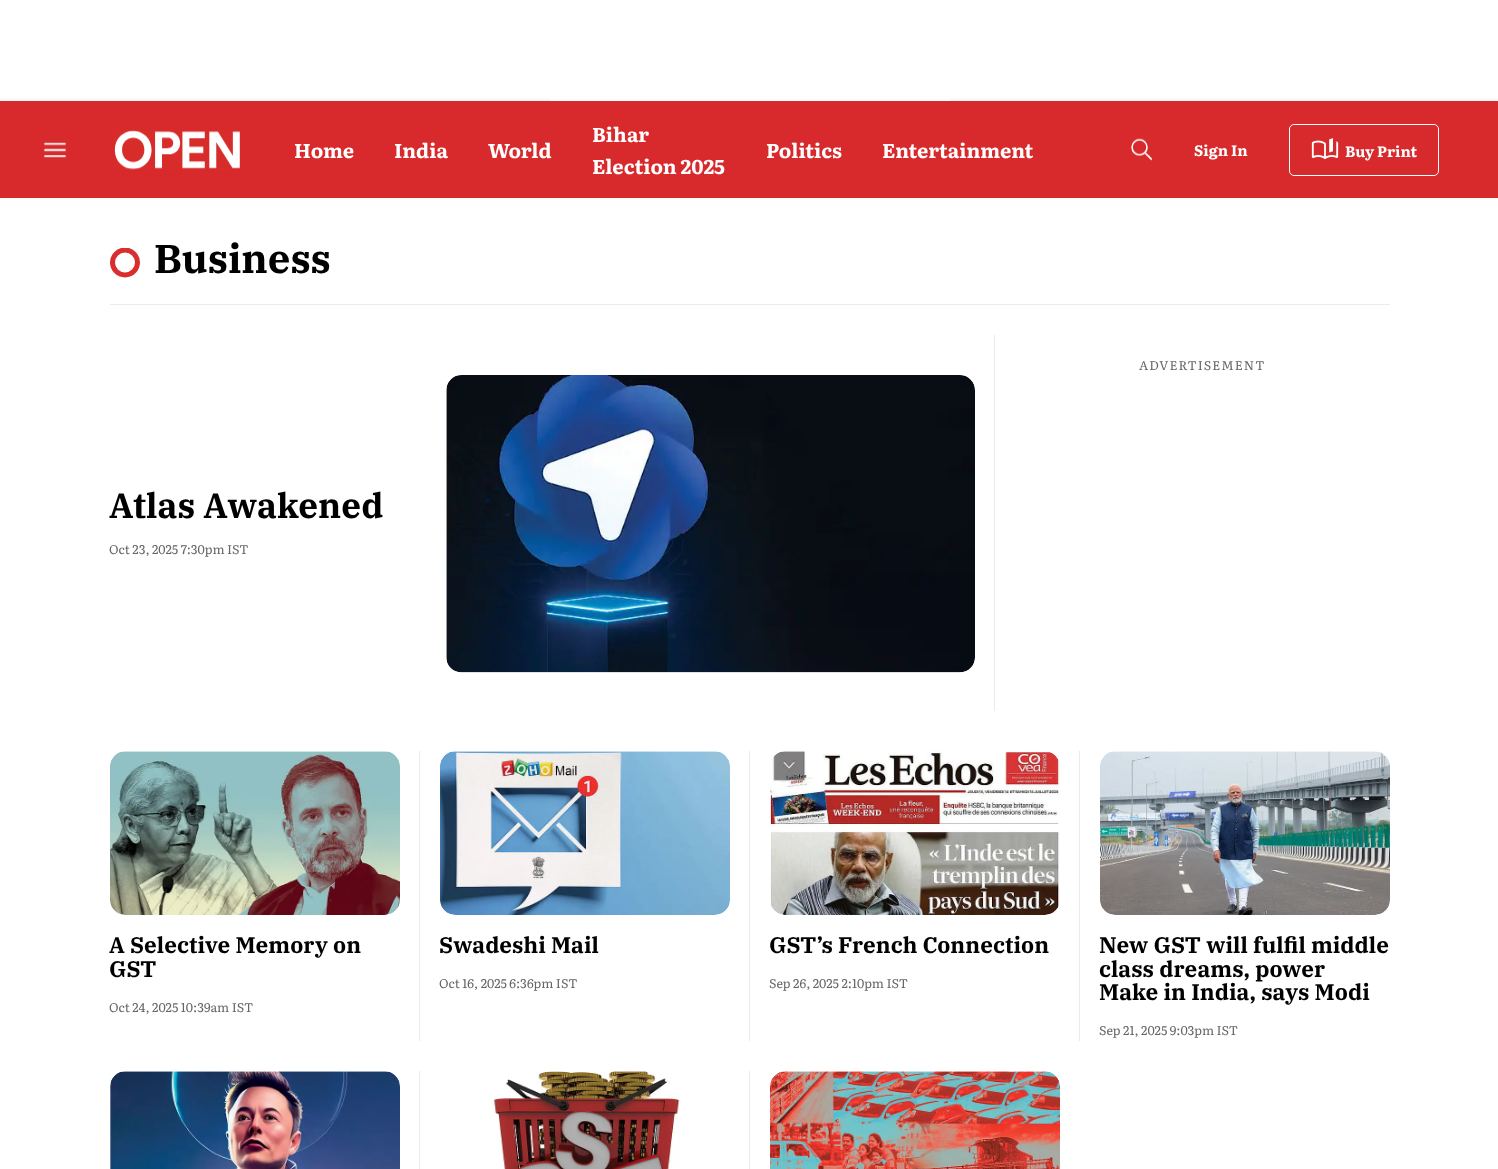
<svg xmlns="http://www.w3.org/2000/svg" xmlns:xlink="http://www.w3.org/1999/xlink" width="1498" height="1169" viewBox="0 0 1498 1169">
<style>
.cls-1{font:bold 20px Literata;fill:#ffffff}
.cls-2{font:bold 15px Literata;fill:#ffffff}
.cls-3{font:bold 40px IBM Plex Serif;fill:#000000}
.cls-4{font:12.5px Literata;letter-spacing:1px;fill:#666666}
.cls-5{font:bold 35px IBM Plex Serif;fill:#000000}
.cls-6{font:12.5px Literata;fill:#666666}
.cls-7{font:bold 22.5px IBM Plex Serif;fill:#000000}
</style>
<defs>
<clipPath id="clip1"><rect x="110" y="248" width="30" height="30"/></clipPath>
</defs>
<rect width="100%" height="100%" fill="#ffffff"/>
<rect fill="#000000" fill-opacity="0.06" filter="blur(2.5px)" x="0" y="100" width="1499" height="96"/>
<rect fill="#ffffff" x="550" y="98" width="400" height="3"/>
<rect fill="#d82a2c" x="0" y="101" width="1498" height="97"/>
<image xlink:href="image0.png" x="44" y="142" width="22" height="16"/>
<image xlink:href="image1.png" x="114" y="130" width="126" height="40"/>
<image xlink:href="image2.png" x="1131" y="138" width="22" height="23"/>
<rect fill="none" stroke="#ffffff" x="1289.5" y="124.5" width="149" height="51" rx="4.5"/>
<image xlink:href="image3.png" x="1311" y="138" width="28" height="22"/>
<rect fill="#ebebeb" x="110" y="304" width="1280" height="1"/>
<g clip-path="url(#clip1)">
<circle fill="none" stroke="#da2d2d" stroke-width="5" cx="125" cy="262.5" r="12.5"/>
</g>
<image xlink:href="image4.png" x="446" y="375" width="529" height="298"/>
<rect fill="#ebebeb" x="994" y="335" width="1" height="376"/>
<image xlink:href="image5.png" x="110" y="751" width="290" height="164"/>
<rect fill="#ebebeb" x="419" y="751" width="1" height="290"/>
<image xlink:href="image6.png" x="440" y="751" width="290" height="164"/>
<rect fill="#ebebeb" x="749" y="751" width="1" height="290"/>
<image xlink:href="image7.png" x="770" y="751" width="290" height="164"/>
<rect fill="#ebebeb" x="1079" y="751" width="1" height="290"/>
<image xlink:href="image8.png" x="1100" y="751" width="290" height="164"/>
<image xlink:href="image9.png" x="110" y="1071" width="290" height="98"/>
<rect fill="#ebebeb" x="419" y="1071" width="1" height="98"/>
<image xlink:href="image10.png" x="493" y="1071" width="187" height="98"/>
<rect fill="#ebebeb" x="749" y="1071" width="1" height="98"/>
<image xlink:href="image11.png" x="770" y="1071" width="290" height="98"/>
<text class="cls-1" x="294" y="158">Home</text>
<text class="cls-1" x="394" y="158">India</text>
<text class="cls-1" x="488" y="158">World</text>
<text class="cls-1"><tspan x="592" y="142">Bihar</tspan><tspan x="592" y="174">Election 2025</tspan></text>
<text class="cls-1" x="766" y="158">Politics</text>
<text class="cls-1" x="882" y="158">Entertainment</text>
<text class="cls-2" x="1194" y="156">Sign In</text>
<text class="cls-2" x="1345" y="157">Buy Print</text>
<text class="cls-3" x="154" y="273">Business</text>
<text class="cls-4" x="1139" y="370">ADVERTISEMENT</text>
<text class="cls-5" x="109" y="518">Atlas Awakened</text>
<text class="cls-6" x="109" y="554">Oct 23, 2025 7:30pm IST</text>
<text class="cls-7"><tspan x="109" y="953">A Selective Memory on</tspan><tspan x="109" y="977">GST</tspan></text>
<text class="cls-6" x="109" y="1012">Oct 24, 2025 10:39am IST</text>
<text class="cls-7" x="439" y="953">Swadeshi Mail</text>
<text class="cls-6" x="439" y="988">Oct 16, 2025 6:36pm IST</text>
<text class="cls-7" x="769" y="953">GST’s French Connection</text>
<text class="cls-6" x="769" y="988">Sep 26, 2025 2:10pm IST</text>
<text class="cls-7"><tspan x="1099" y="953">New GST will fulfil middle</tspan><tspan x="1099" y="977">class dreams, power</tspan><tspan x="1099" y="1000">Make in India, says Modi</tspan></text>
<text class="cls-6" x="1099" y="1035">Sep 21, 2025 9:03pm IST</text>
</svg>
